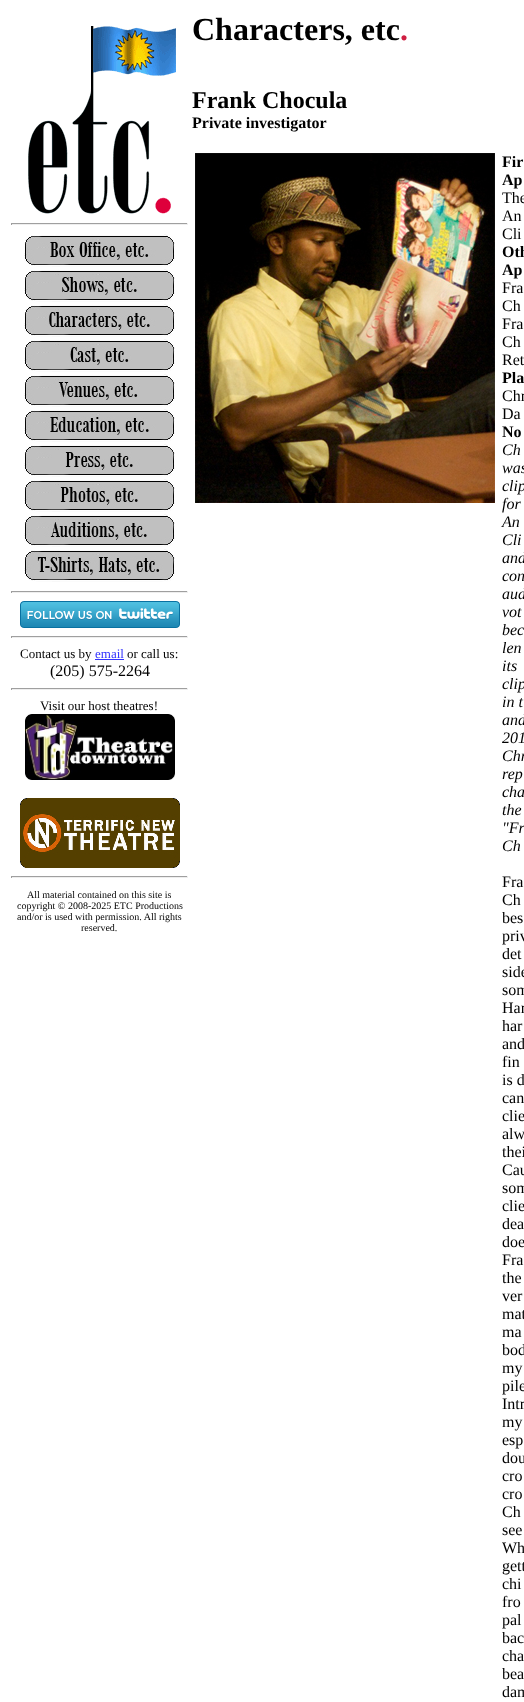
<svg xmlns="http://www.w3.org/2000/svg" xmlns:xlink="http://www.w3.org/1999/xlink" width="524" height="1702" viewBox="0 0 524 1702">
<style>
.cls-1{font:13px Liberation Serif;fill:#000000}
.cls-2{font:13px Liberation Serif;fill:#3333ff}
.cls-3{font:16px Liberation Serif;fill:#000000}
.cls-4{font:10px Liberation Serif;fill:#000000}
.cls-5{font:bold 32px Liberation Serif;fill:#000000}
.cls-6{font:bold 32px Liberation Serif;fill:#cf1e41}
.cls-7{font:bold 24px Liberation Serif;fill:#000000}
.cls-8{font:bold 16px Liberation Serif;fill:#000000}
.cls-9{font:italic 16px Liberation Serif;fill:#000000}
</style>
<rect width="100%" height="100%" fill="#ffffff"/>
<image xlink:href="image0.png" x="28" y="26" width="148" height="188"/>
<rect fill="#9f9f9f" x="11" y="223" width="177" height="1"/>
<rect fill="#eeeeee" x="187" y="223" width="1" height="2"/>
<rect fill="#eeeeee" x="11" y="224" width="177" height="1"/>
<rect fill="#9f9f9f" x="11" y="223" width="1" height="2"/>
<image xlink:href="image1.png" x="24" y="234" width="151" height="33"/>
<image xlink:href="image2.png" x="24" y="269" width="151" height="33"/>
<image xlink:href="image3.png" x="24" y="304" width="151" height="33"/>
<image xlink:href="image4.png" x="24" y="339" width="151" height="33"/>
<image xlink:href="image5.png" x="24" y="374" width="151" height="33"/>
<image xlink:href="image6.png" x="24" y="409" width="151" height="33"/>
<image xlink:href="image7.png" x="24" y="444" width="151" height="33"/>
<image xlink:href="image8.png" x="24" y="479" width="151" height="33"/>
<image xlink:href="image9.png" x="24" y="514" width="151" height="33"/>
<image xlink:href="image10.png" x="24" y="549" width="151" height="33"/>
<rect fill="#9f9f9f" x="11" y="591" width="177" height="1"/>
<rect fill="#eeeeee" x="187" y="591" width="1" height="2"/>
<rect fill="#eeeeee" x="11" y="592" width="177" height="1"/>
<rect fill="#9f9f9f" x="11" y="591" width="1" height="2"/>
<image xlink:href="image11.png" x="20" y="601" width="160" height="27"/>
<rect fill="#9f9f9f" x="11" y="636" width="177" height="1"/>
<rect fill="#eeeeee" x="187" y="636" width="1" height="2"/>
<rect fill="#eeeeee" x="11" y="637" width="177" height="1"/>
<rect fill="#9f9f9f" x="11" y="636" width="1" height="2"/>
<rect fill="#3333ff" x="95" y="659" width="29" height="1"/>
<rect fill="#9f9f9f" x="11" y="688" width="177" height="1"/>
<rect fill="#eeeeee" x="187" y="688" width="1" height="2"/>
<rect fill="#eeeeee" x="11" y="689" width="177" height="1"/>
<rect fill="#9f9f9f" x="11" y="688" width="1" height="2"/>
<image xlink:href="image12.png" x="25" y="714" width="150" height="66"/>
<image xlink:href="image13.png" x="20" y="798" width="160" height="70"/>
<rect fill="#9f9f9f" x="11" y="876" width="177" height="1"/>
<rect fill="#eeeeee" x="187" y="876" width="1" height="2"/>
<rect fill="#eeeeee" x="11" y="877" width="177" height="1"/>
<rect fill="#9f9f9f" x="11" y="876" width="1" height="2"/>
<image xlink:href="image14.png" x="195" y="153" width="300" height="350"/>
<text class="cls-1" x="20" y="658">Contact us by</text>
<text class="cls-2" x="95" y="658">email</text>
<text class="cls-1" x="127" y="658">or call us:</text>
<text class="cls-3" x="50" y="676">(205) 575-2264</text>
<text class="cls-1" x="40" y="710">Visit our host theatres!</text>
<text class="cls-4" x="27" y="898">All material contained on this site is</text>
<text class="cls-4"><tspan x="17" y="909">copyright © 2008-2025 ETC Productions</tspan><tspan x="17" y="920">and/or is used with permission. All rights</tspan></text>
<text class="cls-4" x="81" y="931">reserved.</text>
<text class="cls-5" x="192" y="40">Characters, etc</text>
<text class="cls-6" x="400" y="40">.</text>
<text class="cls-7" x="192" y="108">Frank Chocula</text>
<text class="cls-8" x="192" y="128">Private investigator</text>
<text class="cls-8"><tspan x="502" y="167">Fir</tspan><tspan x="502" y="185">Ap</tspan></text>
<text class="cls-3"><tspan x="502" y="203">The</tspan><tspan x="502" y="221">An</tspan><tspan x="502" y="239">Cli</tspan></text>
<text class="cls-8"><tspan x="502" y="257">Oth</tspan><tspan x="502" y="275">Ap</tspan></text>
<text class="cls-3"><tspan x="502" y="293">Fra</tspan><tspan x="502" y="311">Ch</tspan><tspan x="502" y="329">Fra</tspan><tspan x="502" y="347">Ch</tspan><tspan x="502" y="365">Ret</tspan></text>
<text class="cls-8" x="502" y="383">Pla</text>
<text class="cls-3"><tspan x="502" y="401">Chr</tspan><tspan x="502" y="419">Da</tspan></text>
<text class="cls-8" x="502" y="437">No</text>
<text class="cls-9"><tspan x="502" y="455">Ch</tspan><tspan x="502" y="473">was</tspan><tspan x="502" y="491">clip</tspan><tspan x="502" y="509">for</tspan><tspan x="502" y="527">An</tspan><tspan x="502" y="545">Cli</tspan><tspan x="502" y="563">and</tspan><tspan x="502" y="581">con</tspan><tspan x="502" y="599">aud</tspan><tspan x="502" y="617">vot</tspan><tspan x="502" y="635">bec</tspan><tspan x="502" y="653">len</tspan><tspan x="502" y="671">its</tspan><tspan x="502" y="689">clip</tspan><tspan x="502" y="707">in t</tspan><tspan x="502" y="725">and</tspan><tspan x="502" y="743">201</tspan><tspan x="502" y="761">Chr</tspan><tspan x="502" y="779">rep</tspan><tspan x="502" y="797">cha</tspan><tspan x="502" y="815">the</tspan><tspan x="502" y="833">"Fr</tspan><tspan x="502" y="851">Ch</tspan></text>
<text class="cls-3"><tspan x="502" y="887">Fra</tspan><tspan x="502" y="905">Ch</tspan><tspan x="502" y="923">bes</tspan><tspan x="502" y="941">priv</tspan><tspan x="502" y="959">det</tspan><tspan x="502" y="977">side</tspan><tspan x="502" y="995">som</tspan><tspan x="502" y="1013">Har</tspan><tspan x="502" y="1031">har</tspan><tspan x="502" y="1049">and</tspan><tspan x="502" y="1067">fin</tspan><tspan x="502" y="1085">is d</tspan><tspan x="502" y="1103">can</tspan><tspan x="502" y="1121">clie</tspan><tspan x="502" y="1139">alw</tspan><tspan x="502" y="1157">thei</tspan><tspan x="502" y="1175">Cau</tspan><tspan x="502" y="1193">som</tspan><tspan x="502" y="1211">clie</tspan><tspan x="502" y="1229">dea</tspan><tspan x="502" y="1247">doe</tspan><tspan x="502" y="1265">Fra</tspan><tspan x="502" y="1283">the</tspan><tspan x="502" y="1301">ver</tspan><tspan x="502" y="1319">mat</tspan><tspan x="502" y="1337">ma</tspan><tspan x="502" y="1355">bod</tspan><tspan x="502" y="1373">my</tspan><tspan x="502" y="1391">pile</tspan><tspan x="502" y="1409">Intr</tspan><tspan x="502" y="1427">my</tspan><tspan x="502" y="1445">esp</tspan><tspan x="502" y="1463">dou</tspan><tspan x="502" y="1481">cro</tspan><tspan x="502" y="1499">cro</tspan><tspan x="502" y="1517">Ch</tspan><tspan x="502" y="1535">see</tspan><tspan x="502" y="1553">Wh</tspan><tspan x="502" y="1571">gett</tspan><tspan x="502" y="1589">chi</tspan><tspan x="502" y="1607">fro</tspan><tspan x="502" y="1625">pal</tspan><tspan x="502" y="1643">bac</tspan><tspan x="502" y="1661">cha</tspan><tspan x="502" y="1679">bea</tspan><tspan x="502" y="1697">dam</tspan></text>
</svg>
